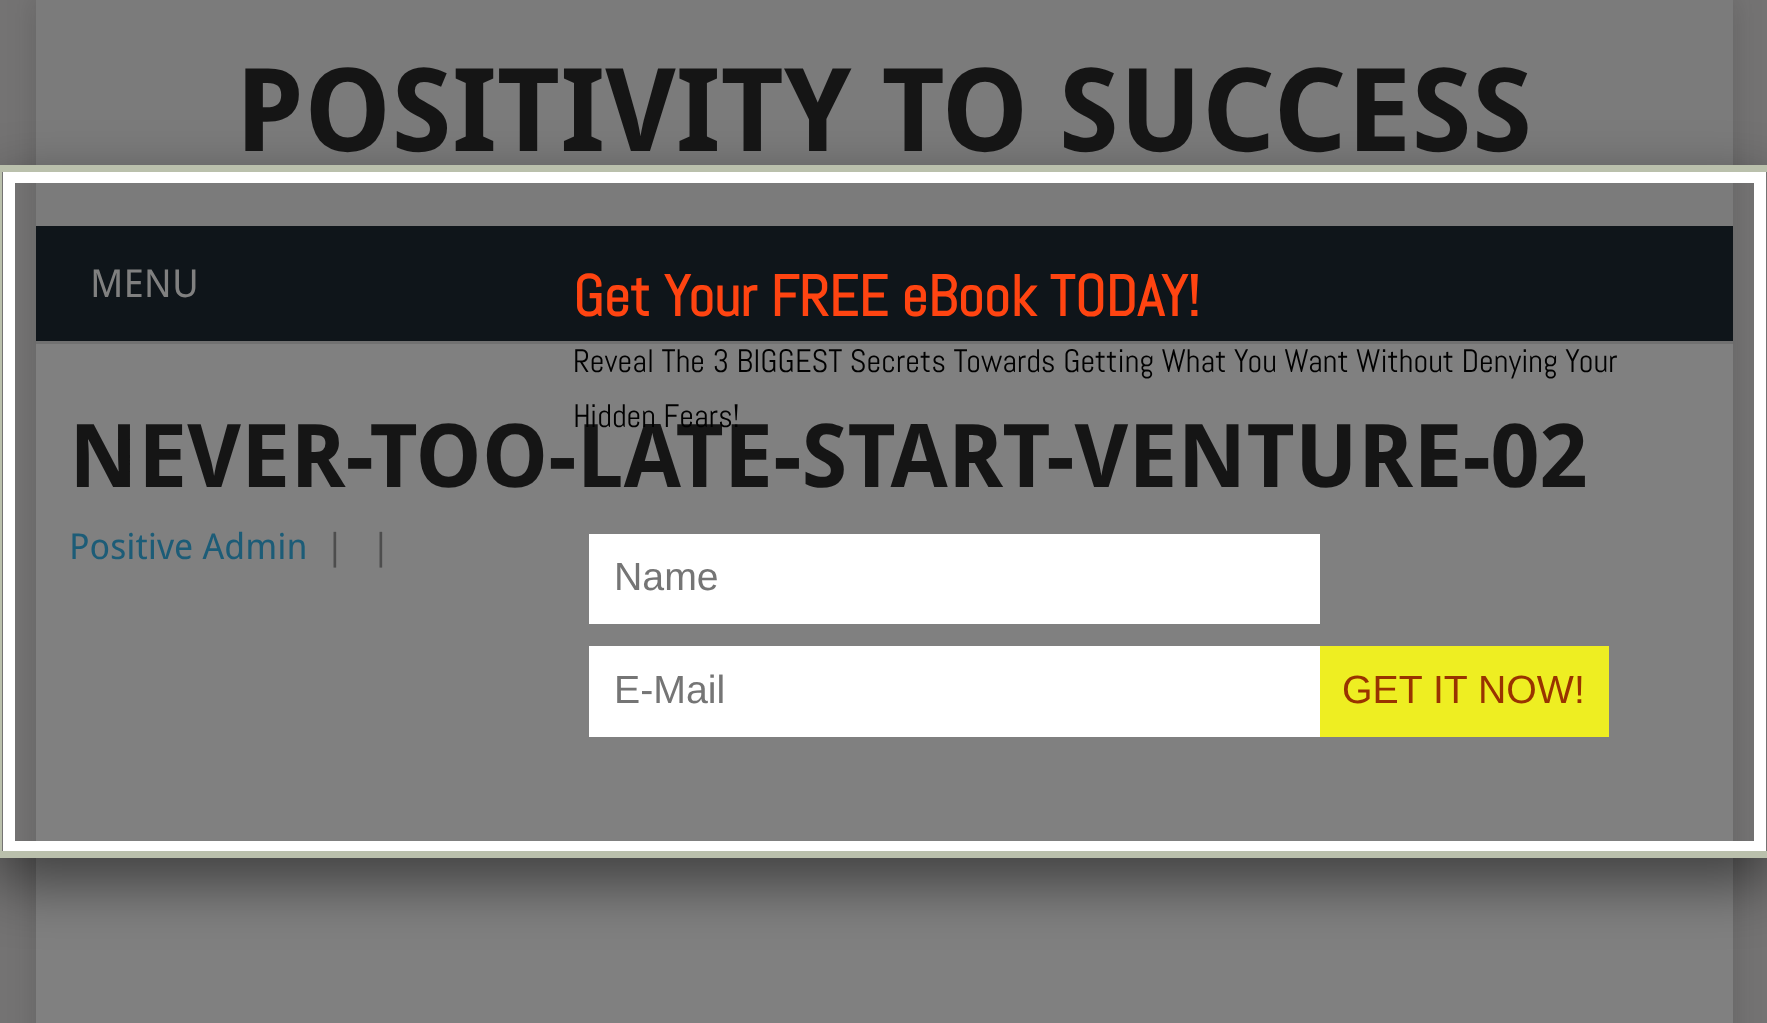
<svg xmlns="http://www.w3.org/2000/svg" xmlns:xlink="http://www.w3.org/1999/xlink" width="1767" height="1023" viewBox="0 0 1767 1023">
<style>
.cls-1{font:bold 115.5px Droid Sans;fill:#151515}
.cls-2{font:38.5px Droid Sans;fill:#808080}
.cls-3{font:bold 88px Droid Sans;fill:#151515}
.cls-4{font:35.75px Droid Sans;fill:#1c5c77}
.cls-5{font:35.75px Droid Sans;fill:#4d4d4d}
.cls-6{font:bold 57.75px Abel;fill:#ff4411}
.cls-7{font:32.35px Abel;fill:#000000}
.cls-8{font:39.25px Liberation Sans;fill:#757575}
.cls-9{font:39.25px Liberation Sans;fill:#993300}
</style>
<defs>
<clipPath id="clip1"><path d="M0 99H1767V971H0ZM-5 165H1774V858H-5Z" clip-rule="evenodd"/></clipPath>
</defs>
<rect width="100%" height="100%" fill="#747373"/>
<rect fill="#191919" fill-opacity="0.17" filter="blur(14px)" x="36" y="0" width="1697" height="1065"/>
<rect fill="#808080" x="36" y="344" width="1697" height="679"/>
<rect fill="#7b7b7b" x="36" y="0" width="1697" height="226"/>
<rect fill="#0f151a" x="36" y="226" width="1697" height="115"/>
<rect fill="#717171" x="36" y="341" width="1697" height="3"/>
<g clip-path="url(#clip1)">
<rect fill="#000000" fill-opacity="0.5" filter="blur(29px)" x="-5" y="187" width="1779" height="696"/>
</g>
<rect fill="none" stroke="#ffffff" stroke-width="12" x="9" y="177" width="1751" height="670"/>
<rect fill="none" stroke="#bac0ac" stroke-width="7" x="-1.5" y="168.5" width="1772" height="686"/>
<rect fill="#ffffff" x="589" y="534" width="731" height="90"/>
<rect fill="#ffffff" x="589" y="646" width="731" height="91"/>
<rect fill="#eeee22" x="1320" y="646" width="289" height="91"/>
<text class="cls-1" x="235" y="151">POSITIVITY TO SUCCESS</text>
<text class="cls-2" x="90" y="297">MENU</text>
<text class="cls-3" x="69" y="487">NEVER-TOO-LATE-START-VENTURE-02</text>
<text class="cls-4" x="69" y="559">Positive Admin</text>
<text class="cls-5" x="325" y="559">|</text>
<text class="cls-5" x="371" y="559">|</text>
<text class="cls-6" x="573" y="316">Get Your FREE eBook TODAY!</text>
<text class="cls-7"><tspan x="573" y="372">Reveal The 3 BIGGEST Secrets Towards Getting What You Want Without Denying Your</tspan><tspan x="573" y="427">Hidden Fears!</tspan></text>
<text class="cls-8" x="614" y="590">Name</text>
<text class="cls-8" x="614" y="703">E-Mail</text>
<text class="cls-9" x="1342" y="703">GET IT NOW!</text>
</svg>
